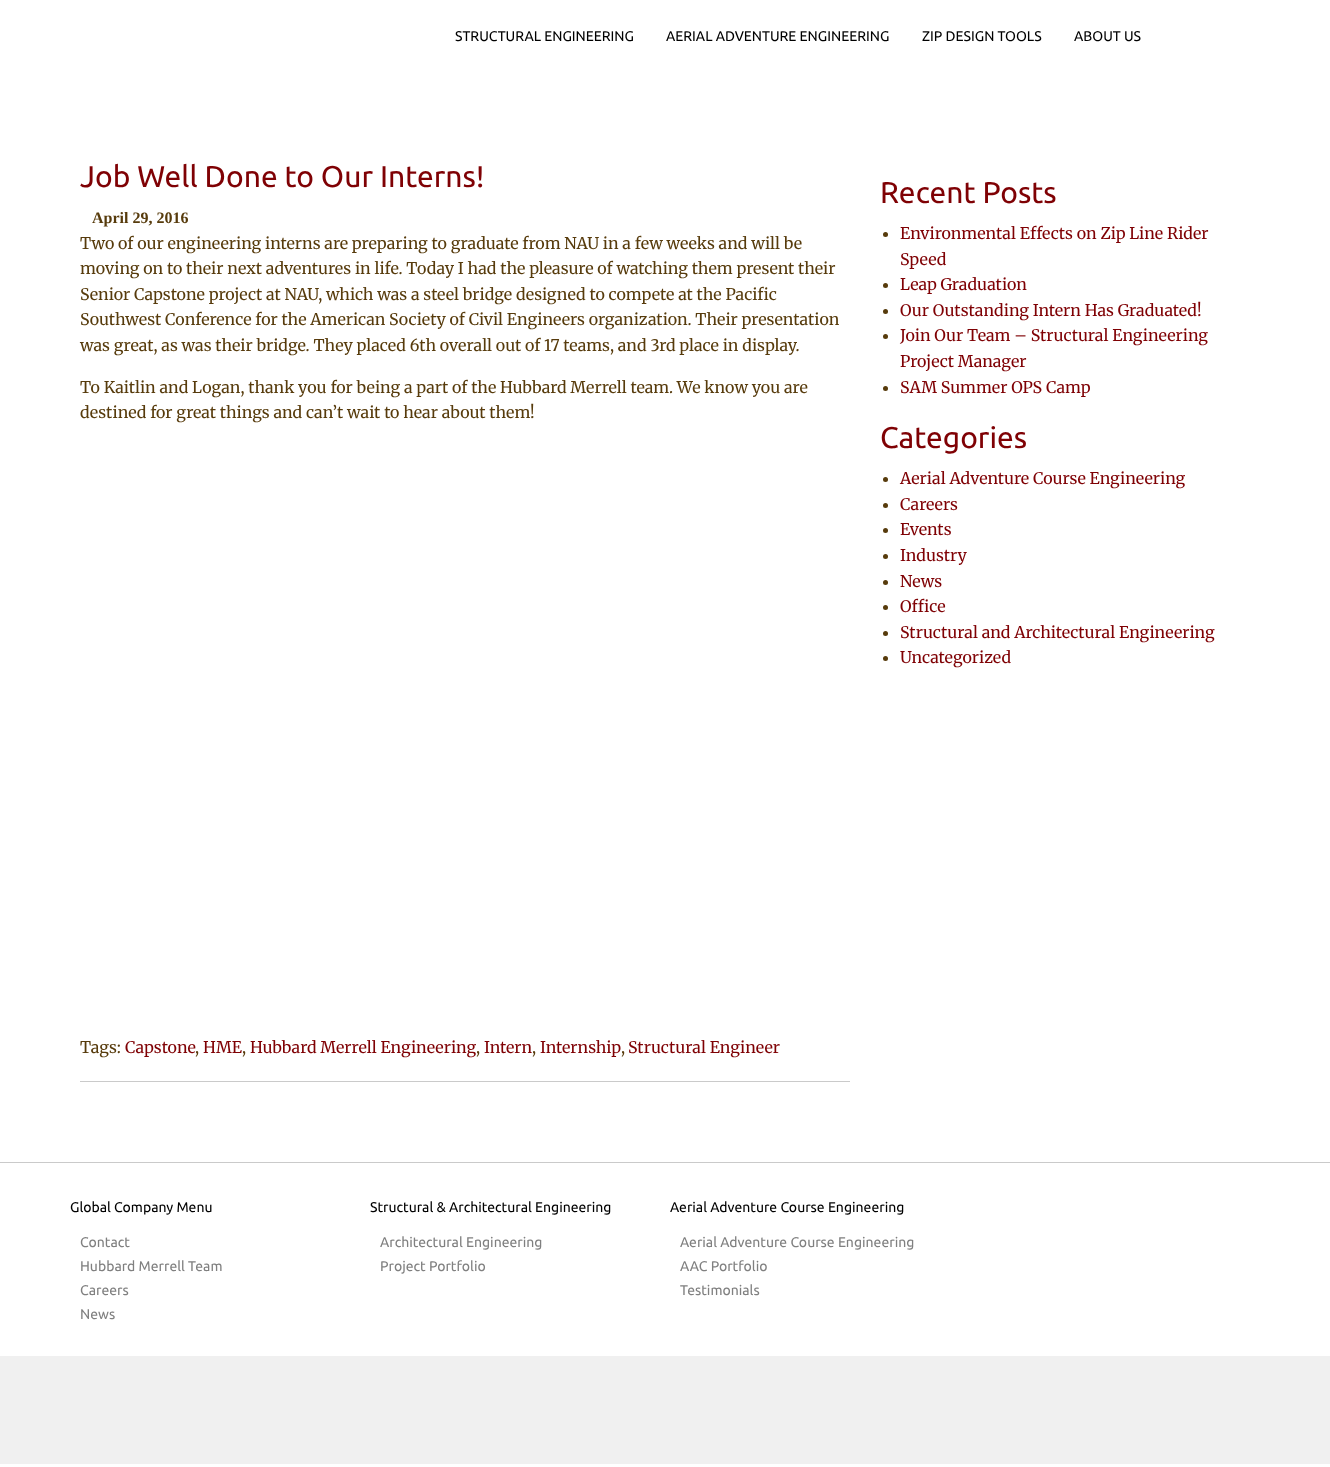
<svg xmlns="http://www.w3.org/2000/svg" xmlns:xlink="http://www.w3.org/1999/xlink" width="1330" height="1467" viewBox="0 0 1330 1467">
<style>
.cls-1{font:14px Ubuntu;fill:#000000}
.cls-2{font:30px Ubuntu;fill:#7f0104}
.cls-3{font:bold 16px Liberation Serif;fill:#573b0c}
.cls-4{font:300 16px Merriweather;fill:#573b0c}
.cls-5{font:300 16px Merriweather;fill:#7f0104}
.cls-6{font:14px Ubuntu;fill:#808080}
</style>
<rect width="100%" height="100%" fill="#ffffff"/>
<rect fill="#cacaca" x="80" y="1081" width="770" height="1"/>
<circle fill="#573b0c" cx="885.5" cy="234.5" r="2.5"/>
<circle fill="#573b0c" cx="885.5" cy="285.5" r="2.5"/>
<circle fill="#573b0c" cx="885.5" cy="311.5" r="2.5"/>
<circle fill="#573b0c" cx="885.5" cy="336.5" r="2.5"/>
<circle fill="#573b0c" cx="885.5" cy="388.5" r="2.5"/>
<circle fill="#573b0c" cx="885.5" cy="479.5" r="2.5"/>
<circle fill="#573b0c" cx="885.5" cy="505.5" r="2.5"/>
<circle fill="#573b0c" cx="885.5" cy="530.5" r="2.5"/>
<circle fill="#573b0c" cx="885.5" cy="556.5" r="2.5"/>
<circle fill="#573b0c" cx="885.5" cy="582.5" r="2.5"/>
<circle fill="#573b0c" cx="885.5" cy="607.5" r="2.5"/>
<circle fill="#573b0c" cx="885.5" cy="633.5" r="2.5"/>
<circle fill="#573b0c" cx="885.5" cy="658.5" r="2.5"/>
<rect fill="#cacaca" x="0" y="1162" width="1330" height="1"/>
<rect fill="#f0f0f0" x="0" y="1356" width="1330" height="108"/>
<text class="cls-1" x="455" y="41">STRUCTURAL ENGINEERING</text>
<text class="cls-1" x="666" y="41">AERIAL ADVENTURE ENGINEERING</text>
<text class="cls-1" x="922" y="41">ZIP DESIGN TOOLS</text>
<text class="cls-1" x="1074" y="41">ABOUT US</text>
<text class="cls-2" x="80" y="187">Job Well Done to Our Interns!</text>
<text class="cls-3" x="92" y="223">April 29, 2016</text>
<text class="cls-4"><tspan x="80" y="249">Two of our engineering interns are preparing to graduate from NAU in a few weeks and will be</tspan><tspan x="80" y="274">moving on to their next adventures in life. Today I had the pleasure of watching them present their</tspan><tspan x="80" y="300">Senior Capstone project at NAU, which was a steel bridge designed to compete at the Pacific</tspan><tspan x="80" y="325">Southwest Conference for the American Society of Civil Engineers organization. Their presentation</tspan><tspan x="80" y="351">was great, as was their bridge. They placed 6th overall out of 17 teams, and 3rd place in display.</tspan></text>
<text class="cls-4"><tspan x="80" y="393">To Kaitlin and Logan, thank you for being a part of the Hubbard Merrell team. We know you are</tspan><tspan x="80" y="418">destined for great things and can’t wait to hear about them!</tspan></text>
<text class="cls-4" x="80" y="1053">Tags:</text>
<text class="cls-5" x="125" y="1053">Capstone</text>
<text class="cls-4" x="195" y="1053">,</text>
<text class="cls-5" x="203" y="1053">HME</text>
<text class="cls-4" x="242" y="1053">,</text>
<text class="cls-5" x="250" y="1053">Hubbard Merrell Engineering</text>
<text class="cls-4" x="476" y="1053">,</text>
<text class="cls-5" x="484" y="1053">Intern</text>
<text class="cls-4" x="532" y="1053">,</text>
<text class="cls-5" x="540" y="1053">Internship</text>
<text class="cls-4" x="621" y="1053">,</text>
<text class="cls-5" x="628" y="1053">Structural Engineer</text>
<text class="cls-2" x="880" y="203">Recent Posts</text>
<text class="cls-5"><tspan x="900" y="239">Environmental Effects on Zip Line Rider</tspan><tspan x="900" y="265">Speed</tspan><tspan x="900" y="290">Leap Graduation</tspan><tspan x="900" y="316">Our Outstanding Intern Has Graduated!</tspan><tspan x="900" y="341">Join Our Team – Structural Engineering</tspan><tspan x="900" y="367">Project Manager</tspan><tspan x="900" y="393">SAM Summer OPS Camp</tspan></text>
<text class="cls-2" x="880" y="448">Categories</text>
<text class="cls-5"><tspan x="900" y="484">Aerial Adventure Course Engineering</tspan><tspan x="900" y="510">Careers</tspan><tspan x="900" y="535">Events</tspan><tspan x="900" y="561">Industry</tspan><tspan x="900" y="587">News</tspan><tspan x="900" y="612">Office</tspan><tspan x="900" y="638">Structural and Architectural Engineering</tspan><tspan x="900" y="663">Uncategorized</tspan></text>
<text class="cls-1" x="70" y="1212">Global Company Menu</text>
<text class="cls-6"><tspan x="80" y="1247">Contact</tspan><tspan x="80" y="1271">Hubbard Merrell Team</tspan><tspan x="80" y="1295">Careers</tspan><tspan x="80" y="1319">News</tspan></text>
<text class="cls-1" x="370" y="1212">Structural &amp; Architectural Engineering</text>
<text class="cls-6"><tspan x="380" y="1247">Architectural Engineering</tspan><tspan x="380" y="1271">Project Portfolio</tspan></text>
<text class="cls-1" x="670" y="1212">Aerial Adventure Course Engineering</text>
<text class="cls-6"><tspan x="680" y="1247">Aerial Adventure Course Engineering</tspan><tspan x="680" y="1271">AAC Portfolio</tspan><tspan x="680" y="1295">Testimonials</tspan></text>
</svg>
